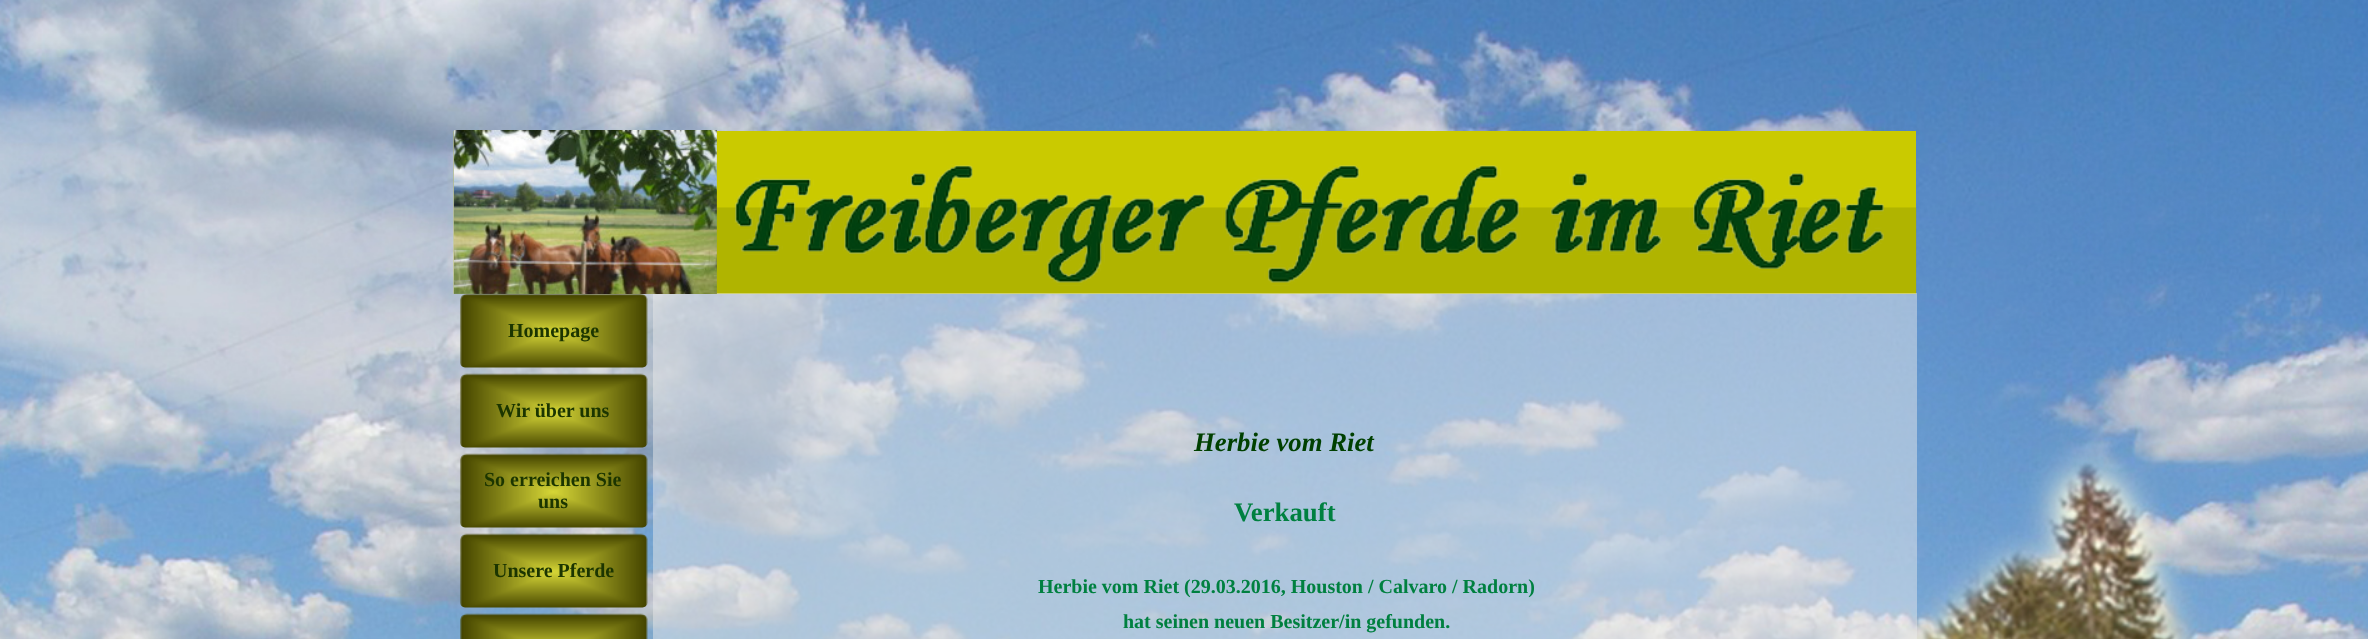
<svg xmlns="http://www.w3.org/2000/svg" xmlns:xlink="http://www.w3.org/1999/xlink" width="2368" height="639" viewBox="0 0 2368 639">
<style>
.cls-1{font:bold 20px Liberation Serif;fill:#1b3500}
.cls-2{font:italic bold 26.75px Liberation Serif;fill:#004000}
.cls-3{font:bold 26.75px Liberation Serif;fill:#008040}
.cls-4{font:bold 20px Liberation Serif;fill:#008040}
</style>
<rect width="100%" height="100%" fill="#ffffff"/>
<image xlink:href="image0.png" x="0" y="0" width="2368" height="639"/>
<rect fill="#caca00" x="716" y="131" width="1200" height="163"/>
<image xlink:href="image1.png" x="453" y="131" width="1464" height="163"/>
<rect fill="#ececec" fill-opacity="0.47" x="653" y="293" width="1264" height="346"/>
<image xlink:href="image2.png" x="453" y="130" width="264" height="164"/>
<image xlink:href="image3.png" x="734" y="164" width="1150" height="122"/>
<image xlink:href="image4.png" x="460" y="294" width="188" height="74"/>
<image xlink:href="image5.png" x="460" y="373" width="188" height="75"/>
<image xlink:href="image6.png" x="460" y="453" width="188" height="75"/>
<image xlink:href="image7.png" x="460" y="533" width="188" height="75"/>
<image xlink:href="image8.png" x="460" y="613" width="188" height="26"/>
<text class="cls-1" x="508" y="337">Homepage</text>
<text class="cls-1" x="496" y="417">Wir über uns</text>
<text class="cls-1" x="484" y="486">So erreichen Sie</text>
<text class="cls-1" x="538" y="508">uns</text>
<text class="cls-1" x="493" y="577">Unsere Pferde</text>
<text class="cls-2" x="1194" y="451">Herbie vom Riet</text>
<text class="cls-3" x="1234" y="521">Verkauft</text>
<text class="cls-4" x="1038" y="593">Herbie vom Riet (29.03.2016, Houston / Calvaro / Radorn)</text>
<text class="cls-4" x="1123" y="628">hat seinen neuen Besitzer/in gefunden.</text>
</svg>
